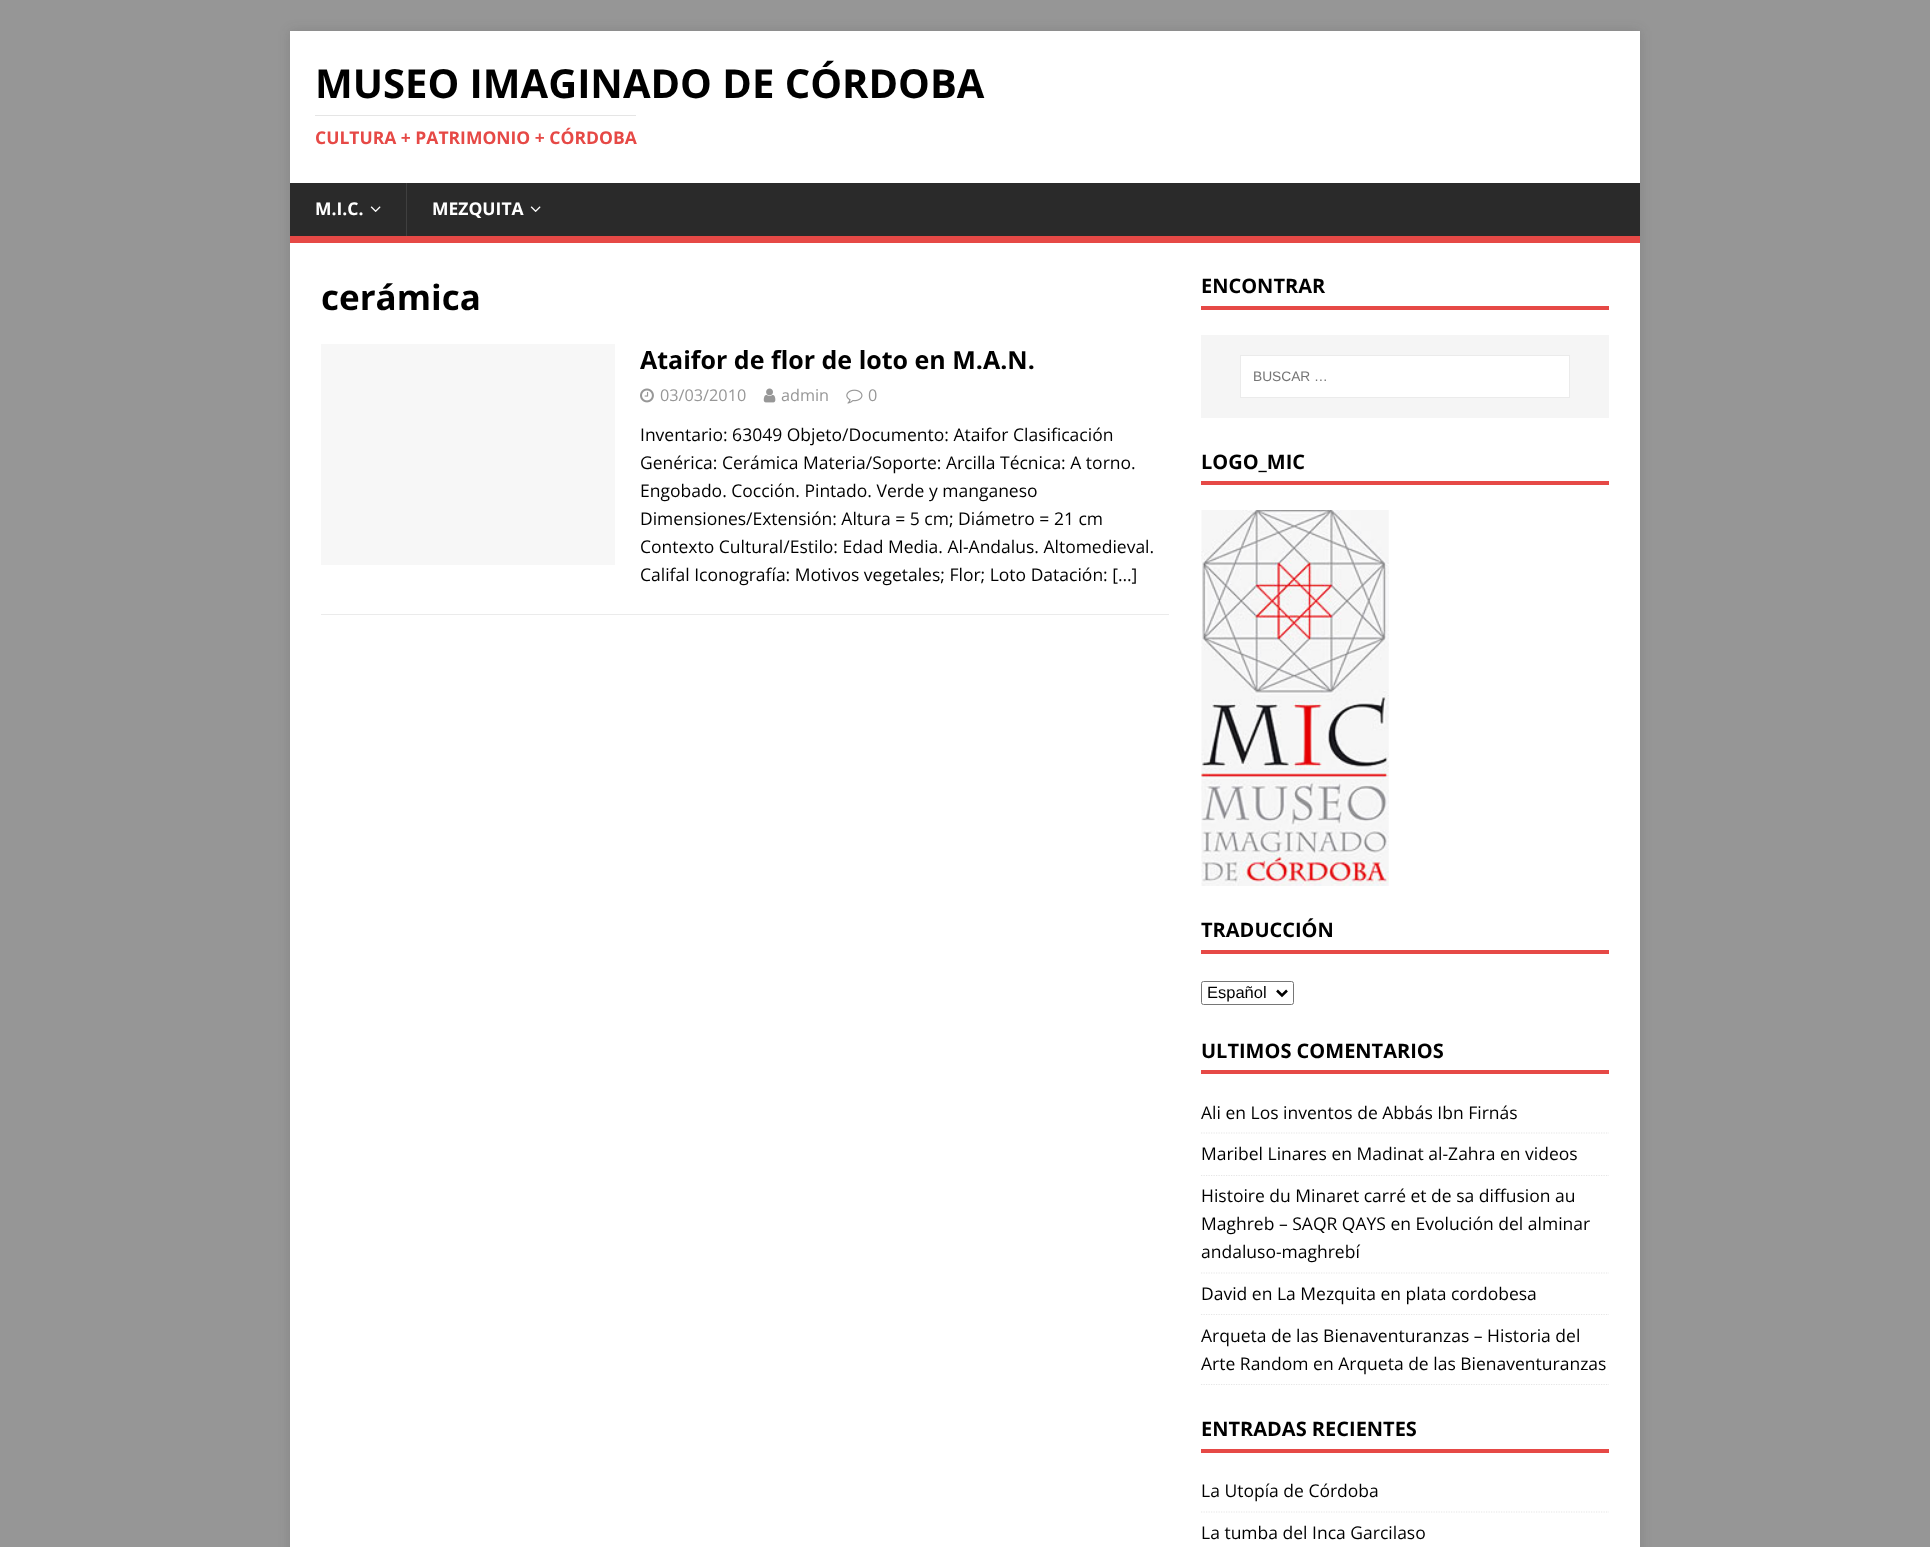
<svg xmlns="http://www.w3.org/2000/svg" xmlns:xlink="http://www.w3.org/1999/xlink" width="1930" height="1547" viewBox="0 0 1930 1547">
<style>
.cls-1{font:bold 40px Open Sans;fill:#000000}
.cls-2{font:bold 17.5px Open Sans;fill:#e64946}
.cls-3{font:bold 17.5px Open Sans;fill:#ffffff}
.cls-4{font:bold 35px Open Sans;fill:#000000}
.cls-5{font:bold 25px Open Sans;fill:#000000}
.cls-6{font:16.25px Open Sans;fill:#979797}
.cls-7{font:17.5px Open Sans;fill:#000000}
.cls-8{font:bold 20px Open Sans;fill:#000000}
.cls-9{font:13.75px Liberation Sans;fill:#757575}
.cls-10{font:16.5px Liberation Sans;fill:#000000}
</style>
<defs>
<clipPath id="clip1"><rect x="1201" y="1038" width="408" height="347"/></clipPath>
</defs>
<rect width="100%" height="100%" fill="#969696"/>
<rect fill="#323232" fill-opacity="0.17" filter="blur(6px)" x="290" y="31" width="1350" height="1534"/>
<rect fill="#ffffff" x="290" y="31" width="1350" height="152"/>
<rect fill="#e5e5e5" x="315" y="115" width="321" height="1"/>
<rect fill="#2a2a2a" x="290" y="183" width="1350" height="53"/>
<rect fill="#e64946" x="290" y="236" width="1350" height="7"/>
<image xlink:href="image0.png" x="370" y="206" width="11" height="6"/>
<rect fill="#3f3f3f" x="406" y="183" width="1" height="53"/>
<image xlink:href="image0.png" x="530" y="206" width="11" height="6"/>
<rect fill="#ffffff" x="290" y="243" width="1350" height="1304"/>
<rect fill="#ebebeb" x="321" y="614" width="848" height="1"/>
<rect fill="#f7f7f7" x="321" y="344" width="294" height="221"/>
<image xlink:href="image1.png" x="640" y="388" width="14" height="15"/>
<image xlink:href="image2.png" x="763" y="388" width="13" height="15"/>
<image xlink:href="image3.png" x="846" y="389" width="17" height="15"/>
<rect fill="#e64946" x="1201" y="306" width="408" height="4"/>
<rect fill="#f5f5f5" x="1201" y="335" width="408" height="83"/>
<rect fill="#ffffff" stroke="#ebebeb" x="1240.5" y="355.5" width="329" height="42"/>
<rect fill="#e64946" x="1201" y="481" width="408" height="4"/>
<image xlink:href="image4.png" x="1201" y="510" width="188" height="376"/>
<rect fill="#e64946" x="1201" y="950" width="408" height="4"/>
<rect fill="none" stroke="#767676" x="1201.5" y="981.5" width="92" height="23" rx="2"/>
<path fill="none" stroke="#000000" stroke-width="2.5" d="M1277 990.5L1282 995.5L1287 990.5"/>
<rect fill="#e64946" x="1201" y="1070" width="408" height="4"/>
<path fill="none" stroke="#e5e5e5" stroke-width="1.2" stroke-dasharray="1.25 1.25" d="M1201 1133H1609"/>
<path fill="none" stroke="#e5e5e5" stroke-width="1.2" stroke-dasharray="1.25 1.25" d="M1201 1175.5H1609"/>
<path fill="none" stroke="#e5e5e5" stroke-width="1.2" stroke-dasharray="1.25 1.25" d="M1201 1273H1609"/>
<path fill="none" stroke="#e5e5e5" stroke-width="1.2" stroke-dasharray="1.25 1.25" d="M1201 1314.5H1609"/>
<g clip-path="url(#clip1)">
<path fill="none" stroke="#e5e5e5" stroke-width="1.2" stroke-dasharray="1.25 1.25" d="M1201 1384.5H1609"/>
</g>
<rect fill="#e64946" x="1201" y="1449" width="408" height="4"/>
<path fill="none" stroke="#e5e5e5" stroke-width="1.2" stroke-dasharray="1.25 1.25" d="M1201 1512H1609"/>
<text class="cls-1" x="315" y="98">MUSEO IMAGINADO DE CÓRDOBA</text>
<text class="cls-2" x="315" y="144">CULTURA + PATRIMONIO + CÓRDOBA</text>
<text class="cls-3" x="315" y="215">M.I.C.</text>
<text class="cls-3" x="432" y="215">MEZQUITA</text>
<text class="cls-4" x="321" y="310">cerámica</text>
<text class="cls-5" x="640" y="369">Ataifor de flor de loto en M.A.N.</text>
<text class="cls-6" x="660" y="401">03/03/2010</text>
<text class="cls-6" x="781" y="401">admin</text>
<text class="cls-6" x="868" y="401">0</text>
<text class="cls-7"><tspan x="640" y="441">Inventario: 63049 Objeto/Documento: Ataifor Clasificación</tspan><tspan x="640" y="469">Genérica: Cerámica Materia/Soporte: Arcilla Técnica: A torno.</tspan><tspan x="640" y="497">Engobado. Cocción. Pintado. Verde y manganeso</tspan><tspan x="640" y="525">Dimensiones/Extensión: Altura = 5 cm; Diámetro = 21 cm</tspan><tspan x="640" y="553">Contexto Cultural/Estilo: Edad Media. Al-Andalus. Altomedieval.</tspan><tspan x="640" y="581">Califal Iconografía: Motivos vegetales; Flor; Loto Datación: […]</tspan></text>
<text class="cls-8" x="1201" y="293">ENCONTRAR</text>
<text class="cls-9" x="1253" y="381">BUSCAR …</text>
<text class="cls-8" x="1201" y="469">LOGO_MIC</text>
<text class="cls-8" x="1201" y="937">TRADUCCIÓN</text>
<text class="cls-10" x="1207" y="998">Español</text>
<text class="cls-8" x="1201" y="1058">ULTIMOS COMENTARIOS</text>
<text class="cls-7" x="1201" y="1119">Ali en Los inventos de Abbás Ibn Firnás</text>
<text class="cls-7" x="1201" y="1160">Maribel Linares en Madinat al-Zahra en videos</text>
<text class="cls-7"><tspan x="1201" y="1202">Histoire du Minaret carré et de sa diffusion au</tspan><tspan x="1201" y="1230">Maghreb – SAQR QAYS en Evolución del alminar</tspan><tspan x="1201" y="1258">andaluso-maghrebí</tspan></text>
<text class="cls-7" x="1201" y="1300">David en La Mezquita en plata cordobesa</text>
<text class="cls-7"><tspan x="1201" y="1342">Arqueta de las Bienaventuranzas – Historia del</tspan><tspan x="1201" y="1370">Arte Random en Arqueta de las Bienaventuranzas</tspan></text>
<text class="cls-8" x="1201" y="1436">ENTRADAS RECIENTES</text>
<text class="cls-7" x="1201" y="1497">La Utopía de Córdoba</text>
<text class="cls-7" x="1201" y="1539">La tumba del Inca Garcilaso</text>
</svg>
